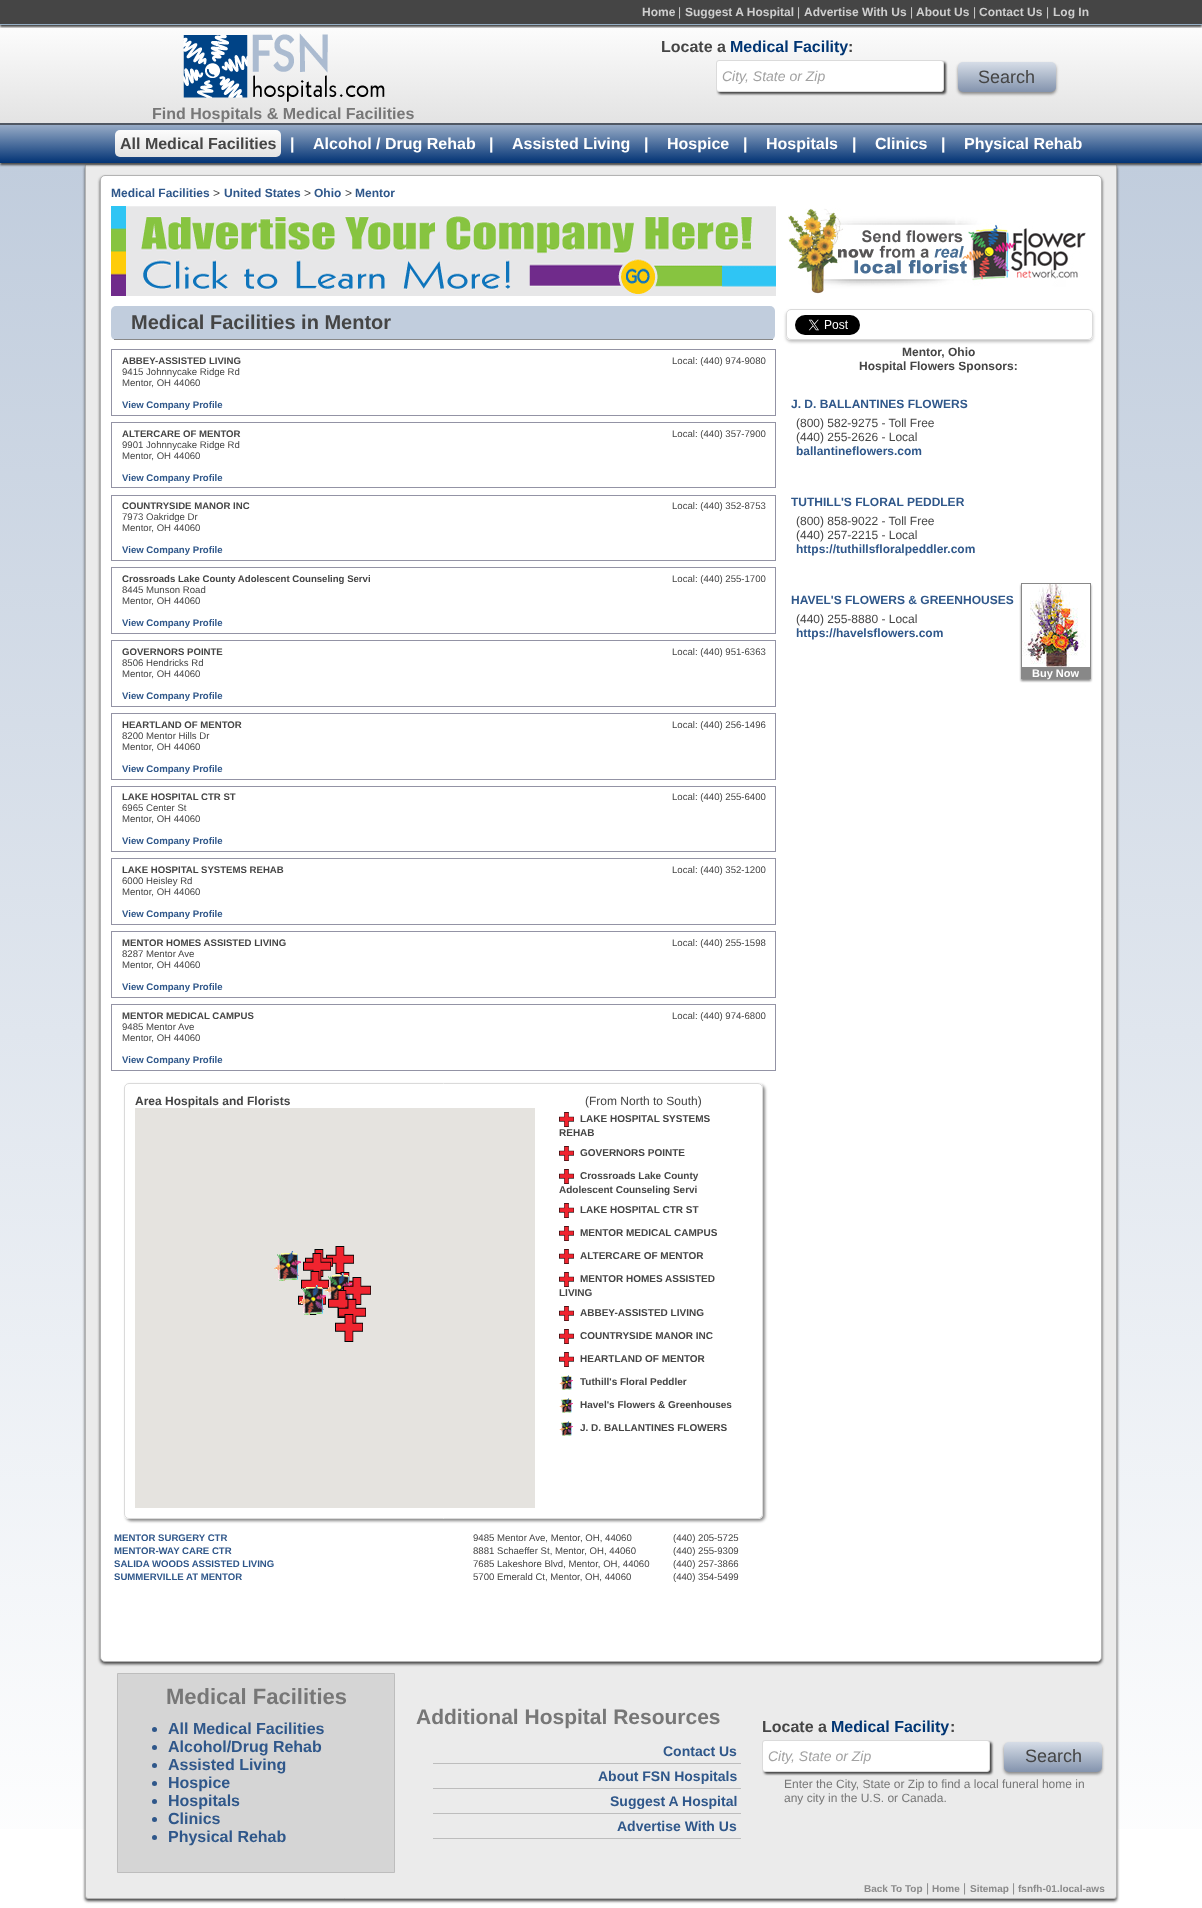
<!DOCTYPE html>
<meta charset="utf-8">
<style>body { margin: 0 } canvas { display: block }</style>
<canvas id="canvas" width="1202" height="1908"></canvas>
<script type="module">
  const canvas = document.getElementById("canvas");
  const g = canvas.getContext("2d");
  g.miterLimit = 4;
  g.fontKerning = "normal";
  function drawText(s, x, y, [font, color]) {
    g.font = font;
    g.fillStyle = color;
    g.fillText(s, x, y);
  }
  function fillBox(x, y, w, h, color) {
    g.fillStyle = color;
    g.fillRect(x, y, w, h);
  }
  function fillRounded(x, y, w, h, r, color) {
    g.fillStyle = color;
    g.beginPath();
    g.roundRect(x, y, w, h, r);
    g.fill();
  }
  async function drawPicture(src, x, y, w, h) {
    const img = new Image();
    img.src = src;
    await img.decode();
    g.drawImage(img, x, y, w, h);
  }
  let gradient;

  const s1 = ["bold 12px Liberation Sans", "#CECECE"];
  const s2 = ["12px Liberation Sans", "#CECECE"];
  const s3 = ["bold 16px Liberation Sans", "#454545"];
  const s4 = ["bold 16px Liberation Sans", "#003573"];
  const s5 = ["italic 14px Liberation Sans", "#A2A2A2"];
  const s6 = ["18px Liberation Sans", "#454545"];
  const s7 = ["bold 16px Liberation Sans", "#777777"];
  const s8 = ["bold 16px Liberation Sans", "#FFFFFF"];
  const s9 = ["bold 12px Liberation Sans", "#2F578A"];
  const s10 = ["12px Liberation Sans", "#454545"];
  const s11 = ["bold 20px Liberation Sans", "#454545"];
  const s12 = ["bold 9.6px Liberation Sans", "#454545"];
  const s13 = ["9.6px Liberation Sans", "#454545"];
  const s14 = ["bold 9.6px Liberation Sans", "#2F578A"];
  const s15 = ["bold 12px Liberation Sans", "#454545"];
  const s16 = ["bold 10px Liberation Sans", "#454545"];
  const s17 = ["bold 11px Liberation Sans", "#FFFFFF"];
  const s18 = ["bold 22px Liberation Sans", "#777777"];
  const s19 = ["bold 16px Liberation Sans", "#2F578A"];
  const s20 = ["bold 21px Liberation Sans", "#777777"];
  const s21 = ["bold 14px Liberation Sans", "#2F578A"];
  const s22 = ["12px Liberation Sans", "#777777"];
  const s23 = ["bold 10px Liberation Sans", "#8A8A8A"];
  const s24 = ["12px Liberation Sans", "#8A8A8A"];

  fillBox(0, 0, 1202, 1908, "#FFFFFF");
  g.fillStyle = "#454545";
  g.filter = "blur(1px)";
  g.beginPath();
  g.rect(0, 2, 1202, 25);
  g.fill();
  g.filter = "none";
  fillBox(0, 0, 1202, 24, "#454545");
  fillBox(0, 24, 1202, 1, "#96AFC5");
  drawText("Home", 642, 16, s1);
  drawText("|", 678, 16, s2);
  drawText("Suggest A Hospital", 685, 16, s1);
  drawText("|", 797, 16, s2);
  drawText("Advertise With Us", 804, 16, s1);
  drawText("|", 910, 16, s2);
  drawText("About Us", 916, 16, s1);
  drawText("|", 973, 16, s2);
  drawText("Contact Us", 979, 16, s1);
  drawText("|", 1046, 16, s2);
  drawText("Log In", 1053, 16, s1);
  gradient = g.createLinearGradient(601, 28, 601, 123);
  gradient.addColorStop(0, "#FCFCFC");
  gradient.addColorStop(1, "#E3E3E3");
  g.fillStyle = gradient;
  g.fillRect(0, 28, 1202, 95);
  drawText("Locate a", 661, 52, s3);
  drawText("Medical Facility", 730, 52, s4);
  drawText(":", 848, 52, s3);
  g.filter = "blur(1px)";
  g.beginPath();
  g.roundRect(718, 62, 228, 32, 3);
  g.fill();
  g.filter = "none";
  g.fillStyle = "#FFFFFF";
  g.beginPath();
  g.roundRect(716.5, 60.5, 227, 31, 2.5);
  g.fill();
  g.strokeStyle = "#DBDBDB";
  g.stroke();
  drawText("City, State or Zip", 722, 81, s5);
  g.fillStyle = "#888888";
  g.filter = "blur(1.5px)";
  g.beginPath();
  g.roundRect(958, 64, 98, 30, 5);
  g.fill();
  g.filter = "none";
  gradient = g.createLinearGradient(1007, 62, 1007, 92);
  gradient.addColorStop(0, "#D6DDE7");
  gradient.addColorStop(1, "#8393AD");
  g.fillStyle = gradient;
  g.beginPath();
  g.roundRect(958, 62, 98, 30, 5);
  g.fill();
  drawText("Search", 978, 83, s6);
  await drawPicture("pic1.png", 183, 33, 202, 69);
  drawText("Find Hospitals & Medical Facilities", 152, 119, s7);
  gradient = g.createLinearGradient(601, 164, 601, 1899);
  gradient.addColorStop(0, "#C1CDDD");
  gradient.addColorStop(1, "#FFFFFF");
  g.fillStyle = gradient;
  g.fillRect(0, 164, 1202, 1665);
  g.fillStyle = "#454545";
  g.filter = "blur(1.5px)";
  g.beginPath();
  g.roundRect(85, 166, 1032, 1735, 3);
  g.fill();
  g.filter = "none";
  g.fillStyle = "#EBEBEB";
  g.beginPath();
  g.roundRect(85.5, 164.5, 1031, 1734, [0, 0, 2.5, 2.5]);
  g.fill();
  g.strokeStyle = "#B3B3B3";
  g.stroke();
  g.fillStyle = "#454545";
  g.filter = "blur(1px)";
  g.beginPath();
  g.rect(0, 125, 1202, 40);
  g.fill();
  g.filter = "none";
  gradient = g.createLinearGradient(601, 125, 601, 163);
  gradient.addColorStop(0, "#97ABC6");
  gradient.addColorStop(1, "#023375");
  g.fillStyle = gradient;
  g.fillRect(0, 125, 1202, 38);
  fillBox(0, 123, 1202, 2, "#505863");
  gradient = g.createLinearGradient(198, 130, 198, 157);
  gradient.addColorStop(0, "#FCFCFC");
  gradient.addColorStop(1, "#E3E3E3");
  g.fillStyle = gradient;
  g.beginPath();
  g.roundRect(115, 130, 166, 27, 5);
  g.fill();
  drawText("All Medical Facilities", 120, 149, s3);
  drawText("|", 290, 149, s8);
  drawText("Alcohol / Drug Rehab", 313, 149, s8);
  drawText("|", 489, 149, s8);
  drawText("Assisted Living", 512, 149, s8);
  drawText("|", 644, 149, s8);
  drawText("Hospice", 667, 149, s8);
  drawText("|", 743, 149, s8);
  drawText("Hospitals", 766, 149, s8);
  drawText("|", 852, 149, s8);
  drawText("Clinics", 875, 149, s8);
  drawText("|", 941, 149, s8);
  drawText("Physical Rehab", 964, 149, s8);
  g.fillStyle = "#454545";
  g.filter = "blur(1.5px)";
  g.beginPath();
  g.roundRect(100, 177, 1002, 1487, 5);
  g.fill();
  g.filter = "none";
  g.fillStyle = "#FFFFFF";
  g.beginPath();
  g.roundRect(100.5, 175.5, 1001, 1486, 4.5);
  g.fill();
  g.stroke();
  drawText("Medical Facilities", 111, 197, s9);
  drawText(">", 213, 197, s10);
  drawText("United States", 224, 197, s9);
  drawText(">", 304, 197, s10);
  drawText("Ohio", 314, 197, s9);
  drawText(">", 345, 197, s10);
  drawText("Mentor", 355, 197, s9);
  await drawPicture("pic2.png", 111, 206, 665, 90);
  fillRounded(111, 306, 664, 34, 5, "#C1CDDD");
  fillBox(114, 339, 659, 1, "#888888");
  drawText("Medical Facilities in Mentor", 131, 329, s11);
  g.strokeStyle = "#9393A5";
  g.strokeRect(111.5, 349.5, 664, 66);
  drawText("ABBEY-ASSISTED LIVING", 122, 364, s12);
  drawText("9415 Johnnycake Ridge Rd", 122, 375, s13);
  drawText("Mentor, OH 44060", 122, 386, s13);
  drawText("Local: (440) 974-9080", 672, 364, s13);
  drawText("View Company Profile", 122, 408, s14);
  g.strokeRect(111.5, 422.5, 664, 65);
  drawText("ALTERCARE OF MENTOR", 122, 437, s12);
  drawText("9901 Johnnycake Ridge Rd", 122, 448, s13);
  drawText("Mentor, OH 44060", 122, 459, s13);
  drawText("Local: (440) 357-7900", 672, 437, s13);
  drawText("View Company Profile", 122, 481, s14);
  g.strokeRect(111.5, 495.5, 664, 65);
  drawText("COUNTRYSIDE MANOR INC", 122, 509, s12);
  drawText("7973 Oakridge Dr", 122, 520, s13);
  drawText("Mentor, OH 44060", 122, 531, s13);
  drawText("Local: (440) 352-8753", 672, 509, s13);
  drawText("View Company Profile", 122, 553, s14);
  g.strokeRect(111.5, 567.5, 664, 66);
  drawText("Crossroads Lake County Adolescent Counseling Servi", 122, 582, s12);
  drawText("8445 Munson Road", 122, 593, s13);
  drawText("Mentor, OH 44060", 122, 604, s13);
  drawText("Local: (440) 255-1700", 672, 582, s13);
  drawText("View Company Profile", 122, 626, s14);
  g.strokeRect(111.5, 640.5, 664, 66);
  drawText("GOVERNORS POINTE", 122, 655, s12);
  drawText("8506 Hendricks Rd", 122, 666, s13);
  drawText("Mentor, OH 44060", 122, 677, s13);
  drawText("Local: (440) 951-6363", 672, 655, s13);
  drawText("View Company Profile", 122, 699, s14);
  g.strokeRect(111.5, 713.5, 664, 66);
  drawText("HEARTLAND OF MENTOR", 122, 728, s12);
  drawText("8200 Mentor Hills Dr", 122, 739, s13);
  drawText("Mentor, OH 44060", 122, 750, s13);
  drawText("Local: (440) 256-1496", 672, 728, s13);
  drawText("View Company Profile", 122, 772, s14);
  g.strokeRect(111.5, 786.5, 664, 65);
  drawText("LAKE HOSPITAL CTR ST", 122, 800, s12);
  drawText("6965 Center St", 122, 811, s13);
  drawText("Mentor, OH 44060", 122, 822, s13);
  drawText("Local: (440) 255-6400", 672, 800, s13);
  drawText("View Company Profile", 122, 844, s14);
  g.strokeRect(111.5, 858.5, 664, 66);
  drawText("LAKE HOSPITAL SYSTEMS REHAB", 122, 873, s12);
  drawText("6000 Heisley Rd", 122, 884, s13);
  drawText("Mentor, OH 44060", 122, 895, s13);
  drawText("Local: (440) 352-1200", 672, 873, s13);
  drawText("View Company Profile", 122, 917, s14);
  g.strokeRect(111.5, 931.5, 664, 66);
  drawText("MENTOR HOMES ASSISTED LIVING", 122, 946, s12);
  drawText("8287 Mentor Ave", 122, 957, s13);
  drawText("Mentor, OH 44060", 122, 968, s13);
  drawText("Local: (440) 255-1598", 672, 946, s13);
  drawText("View Company Profile", 122, 990, s14);
  g.strokeRect(111.5, 1004.5, 664, 66);
  drawText("MENTOR MEDICAL CAMPUS", 122, 1019, s12);
  drawText("9485 Mentor Ave", 122, 1030, s13);
  drawText("Mentor, OH 44060", 122, 1041, s13);
  drawText("Local: (440) 974-6800", 672, 1019, s13);
  drawText("View Company Profile", 122, 1063, s14);
  g.save();
  g.beginPath();
  g.moveTo(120, 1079);
  g.lineTo(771, 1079);
  g.lineTo(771, 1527);
  g.lineTo(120, 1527);
  g.closePath();
  g.moveTo(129, 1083);
  g.lineTo(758, 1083);
  g.bezierCurveTo(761, 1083, 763, 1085, 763, 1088);
  g.lineTo(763, 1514);
  g.bezierCurveTo(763, 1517, 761, 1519, 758, 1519);
  g.lineTo(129, 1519);
  g.bezierCurveTo(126, 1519, 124, 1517, 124, 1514);
  g.lineTo(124, 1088);
  g.bezierCurveTo(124, 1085, 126, 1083, 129, 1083);
  g.closePath();
  g.clip("evenodd");
  g.fillStyle = "#888888";
  g.filter = "blur(1.5px)";
  g.beginPath();
  g.roundRect(126, 1085, 639, 436, 5);
  g.fill();
  g.filter = "none";
  g.restore();
  g.beginPath();
  g.roundRect(124.5, 1083.5, 638, 435, 4.5);
  g.strokeStyle = "#DADADA";
  g.stroke();
  drawText("Area Hospitals and Florists", 135, 1105, s15);
  drawText("(From North to South)", 585, 1105, s10);
  fillBox(135, 1108, 400, 400, "#E5E3DF");
  await drawPicture("pic3.png", 274, 1251, 27, 30);
  await drawPicture("pic5.png", 326, 1246, 28, 28);
  await drawPicture("pic4.png", 305, 1249, 28, 28);
  await drawPicture("pic6.png", 303, 1253, 28, 27);
  await drawPicture("pic7.png", 301, 1271, 28, 18);
  await drawPicture("pic8.png", 340, 1272, 13, 27);
  await drawPicture("pic10.png", 325, 1273, 27, 26);
  await drawPicture("pic12.png", 298, 1295, 28, 20);
  await drawPicture("pic9.png", 299, 1285, 27, 30);
  await drawPicture("pic11.png", 343, 1277, 28, 28);
  await drawPicture("pic13.png", 328, 1290, 28, 28);
  await drawPicture("pic14.png", 338, 1299, 28, 24);
  await drawPicture("pic15.png", 335, 1314, 28, 28);
  await drawPicture("pic16.png", 559, 1112, 15, 15);
  drawText("LAKE HOSPITAL SYSTEMS", 580, 1122, s16);
  drawText("REHAB", 559, 1136, s16);
  await drawPicture("pic16.png", 559, 1146, 15, 15);
  drawText("GOVERNORS POINTE", 580, 1156, s16);
  await drawPicture("pic16.png", 559, 1169, 15, 15);
  drawText("Crossroads Lake County", 580, 1179, s16);
  drawText("Adolescent Counseling Servi", 559, 1193, s16);
  await drawPicture("pic16.png", 559, 1203, 15, 15);
  drawText("LAKE HOSPITAL CTR ST", 580, 1213, s16);
  await drawPicture("pic16.png", 559, 1226, 15, 15);
  drawText("MENTOR MEDICAL CAMPUS", 580, 1236, s16);
  await drawPicture("pic16.png", 559, 1249, 15, 15);
  drawText("ALTERCARE OF MENTOR", 580, 1259, s16);
  await drawPicture("pic16.png", 559, 1272, 15, 15);
  drawText("MENTOR HOMES ASSISTED", 580, 1282, s16);
  drawText("LIVING", 559, 1296, s16);
  await drawPicture("pic16.png", 559, 1306, 15, 15);
  drawText("ABBEY-ASSISTED LIVING", 580, 1316, s16);
  await drawPicture("pic16.png", 559, 1329, 15, 15);
  drawText("COUNTRYSIDE MANOR INC", 580, 1339, s16);
  await drawPicture("pic16.png", 559, 1352, 15, 15);
  drawText("HEARTLAND OF MENTOR", 580, 1362, s16);
  await drawPicture("pic17.png", 559, 1375, 14, 15);
  drawText("Tuthill's Floral Peddler", 580, 1385, s16);
  await drawPicture("pic17.png", 559, 1398, 14, 15);
  drawText("Havel's Flowers & Greenhouses", 580, 1408, s16);
  await drawPicture("pic17.png", 559, 1421, 14, 15);
  drawText("J. D. BALLANTINES FLOWERS", 580, 1431, s16);
  drawText("MENTOR SURGERY CTR", 114, 1541, s14);
  drawText("9485 Mentor Ave, Mentor, OH, 44060", 473, 1541, s13);
  drawText("(440) 205-5725", 673, 1541, s13);
  drawText("MENTOR-WAY CARE CTR", 114, 1554, s14);
  drawText("8881 Schaeffer St, Mentor, OH, 44060", 473, 1554, s13);
  drawText("(440) 255-9309", 673, 1554, s13);
  drawText("SALIDA WOODS ASSISTED LIVING", 114, 1567, s14);
  drawText("7685 Lakeshore Blvd, Mentor, OH, 44060", 473, 1567, s13);
  drawText("(440) 257-3866", 673, 1567, s13);
  drawText("SUMMERVILLE AT MENTOR", 114, 1580, s14);
  drawText("5700 Emerald Ct, Mentor, OH, 44060", 473, 1580, s13);
  drawText("(440) 354-5499", 673, 1580, s13);
  await drawPicture("pic18.png", 788, 208, 298, 86);
  g.save();
  g.beginPath();
  g.moveTo(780, 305);
  g.lineTo(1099, 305);
  g.lineTo(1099, 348);
  g.lineTo(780, 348);
  g.closePath();
  g.moveTo(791, 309);
  g.lineTo(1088, 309);
  g.bezierCurveTo(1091, 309, 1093, 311, 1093, 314);
  g.lineTo(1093, 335);
  g.bezierCurveTo(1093, 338, 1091, 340, 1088, 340);
  g.lineTo(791, 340);
  g.bezierCurveTo(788, 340, 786, 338, 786, 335);
  g.lineTo(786, 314);
  g.bezierCurveTo(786, 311, 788, 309, 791, 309);
  g.closePath();
  g.clip("evenodd");
  g.fillStyle = "#C0C0C0";
  g.filter = "blur(1.5px)";
  g.beginPath();
  g.roundRect(786, 311, 307, 31, 5);
  g.fill();
  g.filter = "none";
  g.restore();
  g.beginPath();
  g.roundRect(786.5, 309.5, 306, 30, 4.5);
  g.stroke();
  await drawPicture("pic19.png", 795, 315, 65, 20);
  drawText("Mentor, Ohio", 902, 356, s15);
  drawText("Hospital Flowers Sponsors:", 859, 370, s15);
  drawText("J. D. BALLANTINES FLOWERS", 791, 408, s9);
  drawText("(800) 582-9275 - Toll Free", 796, 427, s10);
  drawText("(440) 255-2626 - Local", 796, 441, s10);
  drawText("ballantineflowers.com", 796, 455, s9);
  drawText("TUTHILL'S FLORAL PEDDLER", 791, 506, s9);
  drawText("(800) 858-9022 - Toll Free", 796, 525, s10);
  drawText("(440) 257-2215 - Local", 796, 539, s10);
  drawText("https://tuthillsfloralpeddler.com", 796, 553, s9);
  drawText("HAVEL'S FLOWERS & GREENHOUSES", 791, 604, s9);
  drawText("(440) 255-8880 - Local", 796, 623, s10);
  drawText("https://havelsflowers.com", 796, 637, s9);
  g.save();
  g.beginPath();
  g.moveTo(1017, 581);
  g.lineTo(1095, 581);
  g.lineTo(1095, 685);
  g.lineTo(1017, 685);
  g.closePath();
  g.moveTo(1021, 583);
  g.lineTo(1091, 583);
  g.lineTo(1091, 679);
  g.lineTo(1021, 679);
  g.closePath();
  g.clip("evenodd");
  g.fillStyle = "#888888";
  g.filter = "blur(1px)";
  g.beginPath();
  g.rect(1021, 585, 70, 96);
  g.fill();
  g.filter = "none";
  g.restore();
  g.strokeStyle = "#888888";
  g.strokeRect(1021.5, 583.5, 69, 95);
  await drawPicture("pic20.png", 1022, 584, 64, 83);
  fillBox(1022, 667, 68, 11, "#888888");
  drawText("Buy Now", 1032, 677, s17);
  g.fillStyle = "#D5D5D5";
  g.beginPath();
  g.rect(117.5, 1673.5, 277, 199);
  g.fill();
  g.strokeStyle = "#BDBDBD";
  g.stroke();
  drawText("Medical Facilities", 166, 1704, s18);
  g.fillStyle = "#2F578A";
  g.beginPath();
  g.arc(154.5, 1729.5, 2.5, 0, Math.PI * 2);
  g.fill();
  drawText("All Medical Facilities", 168, 1734, s19);
  g.beginPath();
  g.arc(154.5, 1747.5, 2.5, 0, Math.PI * 2);
  g.fill();
  drawText("Alcohol/Drug Rehab", 168, 1752, s19);
  g.beginPath();
  g.arc(154.5, 1765.5, 2.5, 0, Math.PI * 2);
  g.fill();
  drawText("Assisted Living", 168, 1770, s19);
  g.beginPath();
  g.arc(154.5, 1783.5, 2.5, 0, Math.PI * 2);
  g.fill();
  drawText("Hospice", 168, 1788, s19);
  g.beginPath();
  g.arc(154.5, 1801.5, 2.5, 0, Math.PI * 2);
  g.fill();
  drawText("Hospitals", 168, 1806, s19);
  g.beginPath();
  g.arc(154.5, 1819.5, 2.5, 0, Math.PI * 2);
  g.fill();
  drawText("Clinics", 168, 1824, s19);
  g.beginPath();
  g.arc(154.5, 1837.5, 2.5, 0, Math.PI * 2);
  g.fill();
  drawText("Physical Rehab", 168, 1842, s19);
  drawText("Additional Hospital Resources", 416, 1724, s20);
  fillBox(433, 1763, 308, 1, "#BDBDBD");
  drawText("Contact Us", 663, 1756, s21);
  fillBox(433, 1788, 308, 1, "#BDBDBD");
  drawText("About FSN Hospitals", 598, 1781, s21);
  fillBox(433, 1813, 308, 1, "#BDBDBD");
  drawText("Suggest A Hospital", 610, 1806, s21);
  fillBox(433, 1838, 308, 1, "#BDBDBD");
  drawText("Advertise With Us", 617, 1831, s21);
  drawText("Locate a", 762, 1732, s3);
  drawText("Medical Facility", 831, 1732, s4);
  drawText(":", 950, 1732, s3);
  g.filter = "blur(1px)";
  g.beginPath();
  g.roundRect(764, 1742, 228, 32, 3);
  g.fill();
  g.filter = "none";
  g.fillStyle = "#FFFFFF";
  g.beginPath();
  g.roundRect(762.5, 1740.5, 227, 31, 2.5);
  g.fill();
  g.strokeStyle = "#DBDBDB";
  g.stroke();
  drawText("City, State or Zip", 768, 1761, s5);
  g.fillStyle = "#888888";
  g.filter = "blur(1.5px)";
  g.beginPath();
  g.roundRect(1004, 1744, 98, 30, 5);
  g.fill();
  g.filter = "none";
  gradient = g.createLinearGradient(1053, 1742, 1053, 1772);
  gradient.addColorStop(0, "#D6DDE7");
  gradient.addColorStop(1, "#8393AD");
  g.fillStyle = gradient;
  g.beginPath();
  g.roundRect(1004, 1742, 98, 30, 5);
  g.fill();
  drawText("Search", 1025, 1762, s6);
  drawText("Enter the City, State or Zip to find a local funeral home in", 784, 1788, s22);
  drawText("any city in the U.S. or Canada.", 784, 1802, s22);
  drawText("Back To Top", 864, 1892, s23);
  drawText("|", 926, 1892, s24);
  drawText("Home", 932, 1892, s23);
  drawText("|", 963, 1892, s24);
  drawText("Sitemap", 970, 1892, s23);
  drawText("|", 1012, 1892, s24);
  drawText("fsnfh-01.local-aws", 1018, 1892, s23);
</script>
